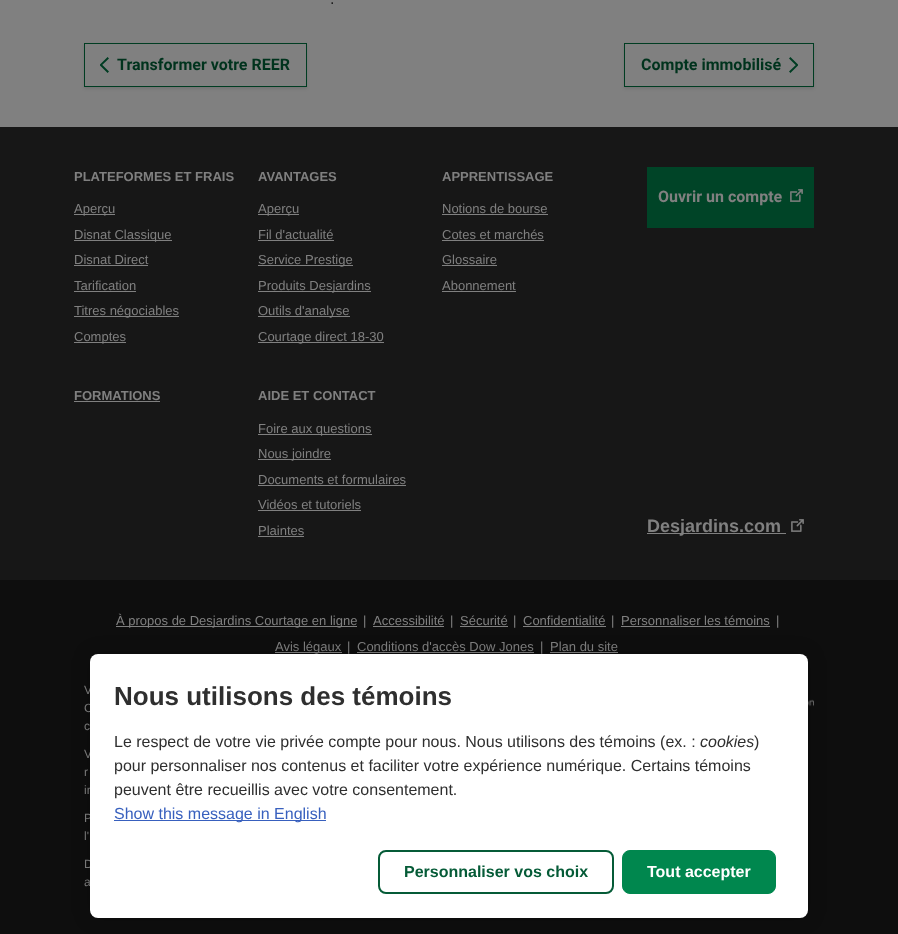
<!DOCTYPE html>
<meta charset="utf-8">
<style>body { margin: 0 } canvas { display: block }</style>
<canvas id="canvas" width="898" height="934"></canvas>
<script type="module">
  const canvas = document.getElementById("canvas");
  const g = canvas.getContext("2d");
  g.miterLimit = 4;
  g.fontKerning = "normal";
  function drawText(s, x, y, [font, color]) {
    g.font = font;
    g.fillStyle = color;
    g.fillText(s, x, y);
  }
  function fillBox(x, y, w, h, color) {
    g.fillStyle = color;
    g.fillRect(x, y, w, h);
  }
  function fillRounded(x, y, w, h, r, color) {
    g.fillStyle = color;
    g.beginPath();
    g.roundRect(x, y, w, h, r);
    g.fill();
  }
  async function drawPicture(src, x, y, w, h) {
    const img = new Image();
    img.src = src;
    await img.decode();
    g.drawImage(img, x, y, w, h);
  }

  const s1 = ["16px Liberation Sans", "#1C1C1C"];
  const s2 = ["bold 16px Roboto", "#00331D"];
  const s3 = ["bold 13px Liberation Sans", "#808080"];
  const s4 = ["13px Liberation Sans", "#808080"];
  const s5 = ["bold 16px Roboto", "#808080"];
  const s6 = ["bold 18px Liberation Sans", "#808080"];
  const s7 = ["12px Liberation Sans", "#808080"];
  const s8 = ["bold 26px Liberation Sans", "#2F2F2F"];
  const s9 = ["16px Liberation Sans", "#2F2F2F"];
  const s10 = ["italic 16px Liberation Sans", "#2F2F2F"];
  const s11 = ["16px Liberation Sans", "#3860BE"];
  const s12 = ["bold 16px Liberation Sans", "#055B37"];
  const s13 = ["bold 16px Liberation Sans", "#FFFFFF"];

  fillBox(0, 0, 898, 934, "#808080");
  drawText(".", 330, 4, s1);
  g.save();
  g.beginPath();
  g.moveTo(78, 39);
  g.lineTo(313, 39);
  g.lineTo(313, 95);
  g.lineTo(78, 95);
  g.closePath();
  g.moveTo(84, 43);
  g.lineTo(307, 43);
  g.lineTo(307, 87);
  g.lineTo(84, 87);
  g.closePath();
  g.clip("evenodd");
  g.fillStyle = "rgba(0, 0, 0, 0.1)";
  g.filter = "blur(1.5px)";
  g.beginPath();
  g.rect(84, 45, 223, 44);
  g.fill();
  g.filter = "none";
  g.restore();
  g.strokeStyle = "#003D22";
  g.strokeRect(84.5, 43.5, 222, 43);
  await drawPicture("pic1.png", 100, 57, 9, 16);
  drawText("Transformer votre REER", 117, 70, s2);
  g.save();
  g.beginPath();
  g.moveTo(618, 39);
  g.lineTo(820, 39);
  g.lineTo(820, 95);
  g.lineTo(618, 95);
  g.closePath();
  g.moveTo(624, 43);
  g.lineTo(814, 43);
  g.lineTo(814, 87);
  g.lineTo(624, 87);
  g.closePath();
  g.clip("evenodd");
  g.fillStyle = "rgba(0, 0, 0, 0.1)";
  g.filter = "blur(1.5px)";
  g.beginPath();
  g.rect(624, 45, 190, 44);
  g.fill();
  g.filter = "none";
  g.restore();
  g.strokeRect(624.5, 43.5, 189, 43);
  drawText("Compte immobilisé", 641, 70, s2);
  await drawPicture("pic2.png", 789, 57, 9, 16);
  fillBox(0, 127, 898, 453, "#171717");
  drawText("PLATEFORMES ET FRAIS", 74, 181, s3);
  fillBox(74, 214, 41, 1, "#808080");
  drawText("Aperçu", 74, 213, s4);
  fillBox(74, 240, 98, 1, "#808080");
  drawText("Disnat Classique", 74, 239, s4);
  drawText("Disnat Direct", 74, 264, s4);
  fillBox(74, 265, 74, 1, "#808080");
  drawText("Tarification", 74, 290, s4);
  fillBox(74, 291, 62, 1, "#808080");
  fillBox(74, 316, 105, 1, "#808080");
  drawText("Titres négociables", 74, 315, s4);
  fillBox(74, 342, 52, 1, "#808080");
  drawText("Comptes", 74, 341, s4);
  drawText("AVANTAGES", 258, 181, s3);
  fillBox(258, 214, 41, 1, "#808080");
  drawText("Aperçu", 258, 213, s4);
  drawText("Fil d'actualité", 258, 239, s4);
  fillBox(258, 240, 76, 1, "#808080");
  fillBox(258, 265, 95, 1, "#808080");
  drawText("Service Prestige", 258, 264, s4);
  fillBox(258, 291, 113, 1, "#808080");
  drawText("Produits Desjardins", 258, 290, s4);
  fillBox(258, 316, 92, 1, "#808080");
  drawText("Outils d'analyse", 258, 315, s4);
  fillBox(258, 342, 126, 1, "#808080");
  drawText("Courtage direct 18-30", 258, 341, s4);
  drawText("APPRENTISSAGE", 442, 181, s3);
  drawText("Notions de bourse", 442, 213, s4);
  fillBox(442, 214, 106, 1, "#808080");
  drawText("Cotes et marchés", 442, 239, s4);
  fillBox(442, 240, 102, 1, "#808080");
  drawText("Glossaire", 442, 264, s4);
  fillBox(442, 265, 55, 1, "#808080");
  drawText("Abonnement", 442, 290, s4);
  fillBox(442, 291, 74, 1, "#808080");
  drawText("FORMATIONS", 74, 400, s3);
  fillBox(74, 401, 86, 1, "#808080");
  drawText("AIDE ET CONTACT", 258, 400, s3);
  fillBox(258, 434, 114, 1, "#808080");
  drawText("Foire aux questions", 258, 433, s4);
  fillBox(258, 459, 73, 1, "#808080");
  drawText("Nous joindre", 258, 458, s4);
  drawText("Documents et formulaires", 258, 484, s4);
  fillBox(258, 485, 148, 1, "#808080");
  drawText("Vidéos et tutoriels", 258, 509, s4);
  fillBox(258, 510, 103, 1, "#808080");
  drawText("Plaintes", 258, 535, s4);
  fillBox(258, 536, 46, 1, "#808080");
  fillBox(647, 167, 167, 61, "#004427");
  drawText("Ouvrir un compte", 658, 202, s5);
  await drawPicture("pic3.png", 790, 189, 13, 13);
  fillBox(647, 533, 139, 1, "#808080");
  drawText("Desjardins.com", 647, 532, s6);
  await drawPicture("pic4.png", 791, 519, 13, 13);
  fillBox(0, 580, 898, 354, "#0E0E0E");
  fillBox(116, 626, 241, 1, "#808080");
  drawText("À propos de Desjardins Courtage en ligne", 116, 625, s4);
  drawText("|", 363, 625, s4);
  drawText("Accessibilité", 373, 625, s4);
  fillBox(373, 626, 71, 1, "#808080");
  drawText("|", 450, 625, s4);
  drawText("Sécurité", 460, 625, s4);
  fillBox(460, 626, 48, 1, "#808080");
  drawText("|", 513, 625, s4);
  drawText("Confidentialité", 523, 625, s4);
  fillBox(523, 626, 83, 1, "#808080");
  drawText("|", 611, 625, s4);
  drawText("Personnaliser les témoins", 621, 625, s4);
  fillBox(621, 626, 149, 1, "#808080");
  drawText("|", 776, 625, s4);
  fillBox(275, 652, 67, 1, "#808080");
  drawText("Avis légaux", 275, 651, s4);
  drawText("|", 347, 651, s4);
  drawText("Conditions d'accès Dow Jones", 357, 651, s4);
  fillBox(357, 652, 177, 1, "#808080");
  drawText("|", 540, 651, s4);
  drawText("Plan du site", 550, 651, s4);
  fillBox(550, 652, 68, 1, "#808080");
  drawText("V", 84, 694, s7);
  drawText("C", 84, 712, s7);
  drawText("c", 84, 730, s7);
  drawText("V", 84, 758, s7);
  drawText("r", 84, 776, s7);
  drawText("in", 84, 794, s7);
  drawText("P", 84, 822, s7);
  drawText("l'", 84, 840, s7);
  drawText("D", 84, 868, s7);
  drawText("a", 84, 886, s7);
  await drawPicture("pic5.png", 808, 699, 6, 8);
  g.fillStyle = "rgba(0, 0, 0, 0.2)";
  g.filter = "blur(9px)";
  g.beginPath();
  g.roundRect(90, 654, 718, 264, 8);
  g.fill();
  g.filter = "none";
  fillRounded(90, 654, 718, 264, 8, "#FFFFFF");
  drawText("Nous utilisons des témoins", 114, 705, s8);
  drawText("Le respect de votre vie privée compte pour nous. Nous utilisons des témoins (ex. :", 114, 747, s9);
  drawText("cookies", 700, 747, s10);
  drawText(")", 754, 747, s9);
  drawText("pour personnaliser nos contenus et faciliter votre expérience numérique. Certains témoins", 114, 771, s9);
  drawText("peuvent être recueillis avec votre consentement.", 114, 795, s9);
  fillBox(114, 820, 212, 1, "#3860BE");
  drawText("Show this message in English", 114, 819, s11);
  g.beginPath();
  g.roundRect(379, 851, 234, 42, 7);
  g.strokeStyle = "#055B37";
  g.lineWidth = 2;
  g.stroke();
  drawText("Personnaliser vos choix", 404, 877, s12);
  g.fillStyle = "#00874E";
  g.beginPath();
  g.roundRect(622.5, 850.5, 153, 43, 7.5);
  g.fill();
  g.strokeStyle = "#00874E";
  g.lineWidth = 1;
  g.stroke();
  drawText("Tout accepter", 647, 877, s13);
</script>
